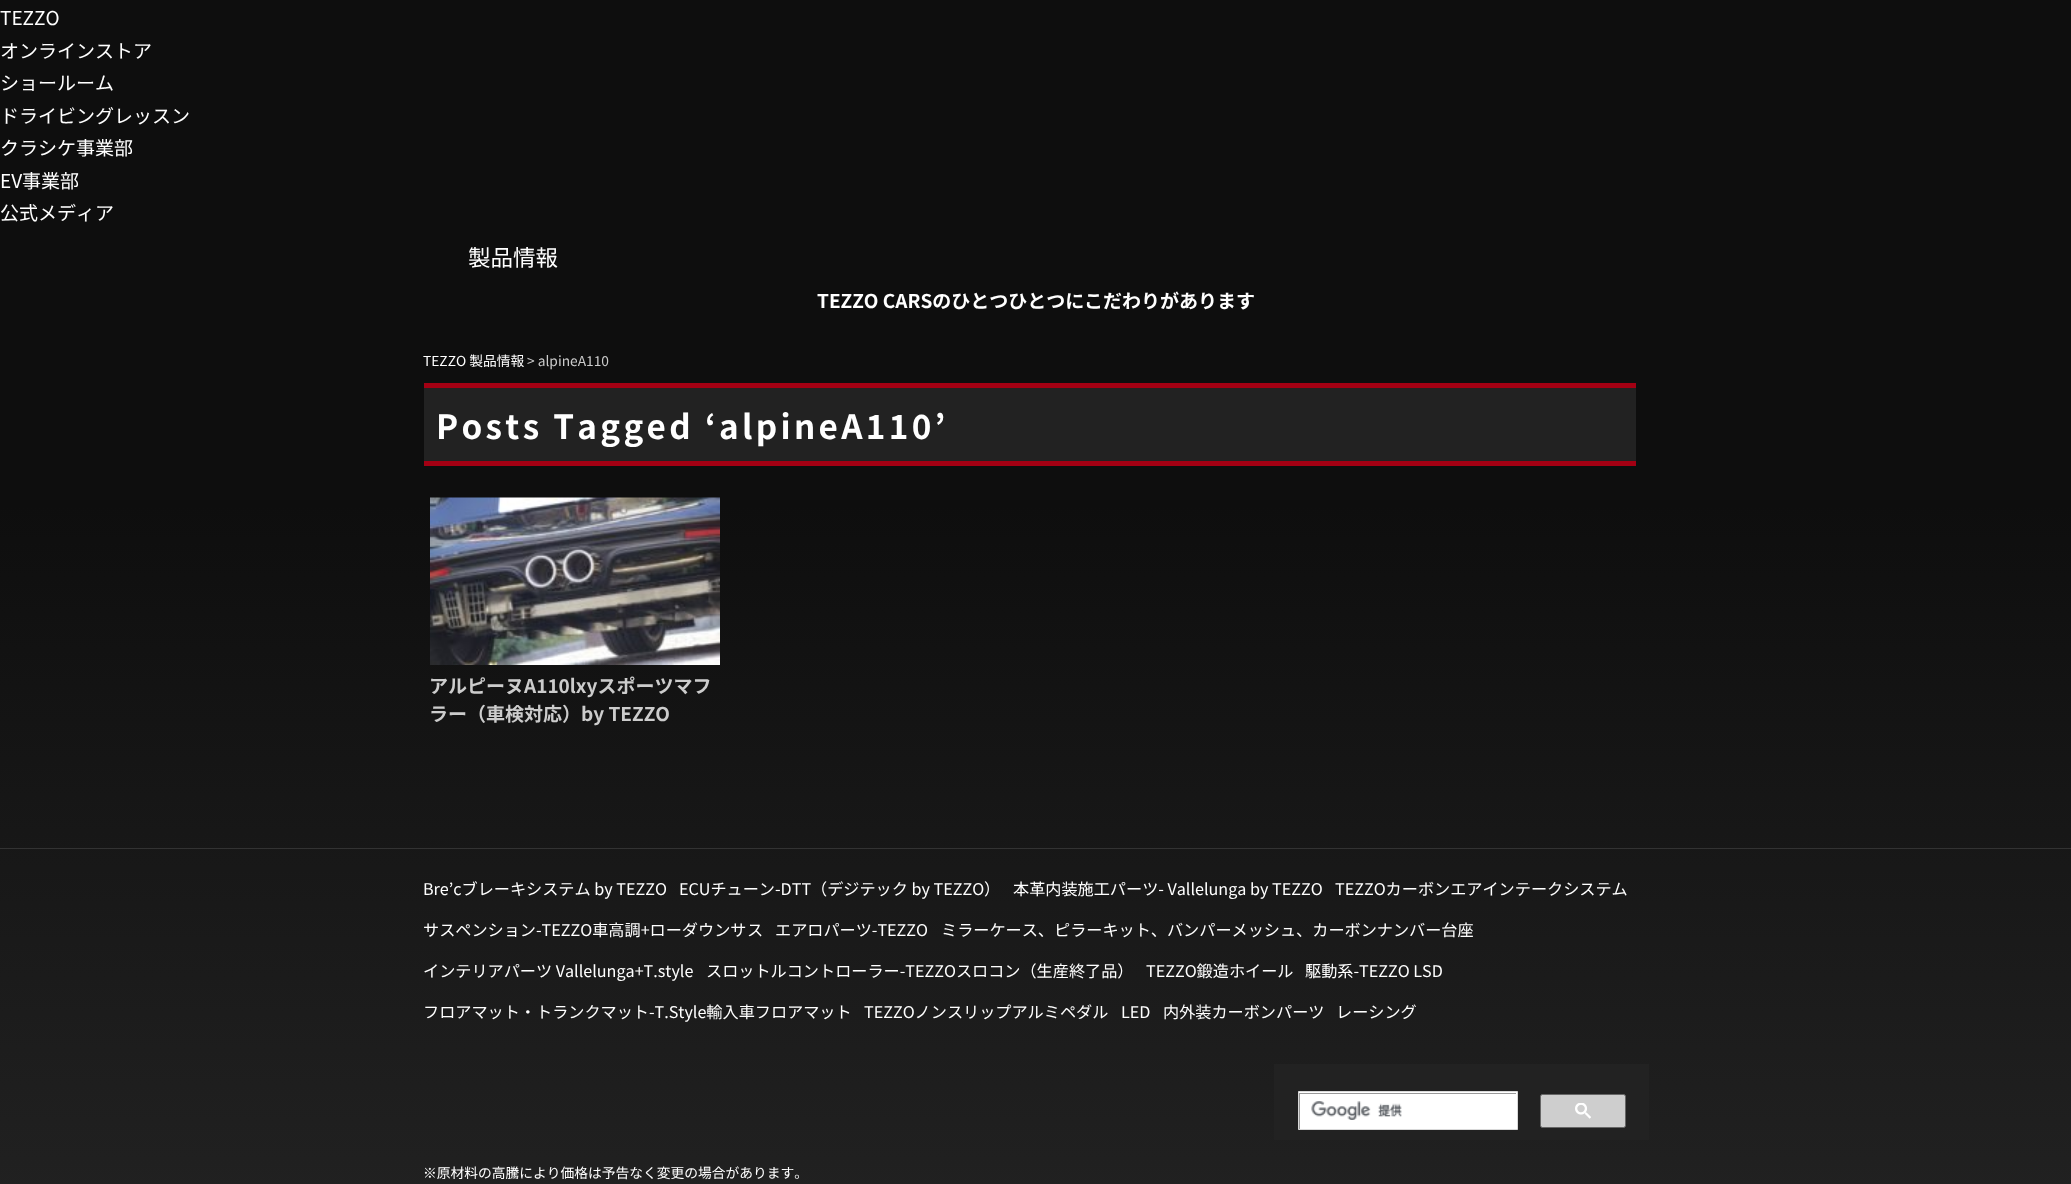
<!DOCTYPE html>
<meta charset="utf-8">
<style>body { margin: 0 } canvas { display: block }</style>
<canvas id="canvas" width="2071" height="1184"></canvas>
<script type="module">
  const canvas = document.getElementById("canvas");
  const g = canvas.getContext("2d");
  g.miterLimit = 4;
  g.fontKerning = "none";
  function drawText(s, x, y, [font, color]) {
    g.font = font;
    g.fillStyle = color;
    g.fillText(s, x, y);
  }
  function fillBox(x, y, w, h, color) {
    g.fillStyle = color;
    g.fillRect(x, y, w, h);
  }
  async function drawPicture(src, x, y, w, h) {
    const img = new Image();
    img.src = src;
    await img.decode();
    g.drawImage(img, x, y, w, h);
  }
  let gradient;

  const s1 = ["19px Noto Sans JP", "#FFFFFF"];
  const s2 = ["22.5px Noto Sans JP", "#FFFFFF"];
  const s3 = ["bold 19px Noto Sans JP", "#FFFFFF"];
  const s4 = ["13.75px Noto Sans JP", "#FFFFFF"];
  const s5 = ["13.75px Noto Sans JP", "#CCCCCC"];
  const s6 = ["bold 33.25px Noto Sans JP", "#FFFFFF"];
  const s7 = ["bold 19px Noto Sans JP", "#CCCCCC"];
  const s8 = ["16.15px Noto Sans JP", "#FFFFFF"];

  fillBox(0, 0, 2071, 1184, "#FFFFFF");
  gradient = g.createLinearGradient(1036, 0, 1036, 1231);
  gradient.addColorStop(0.41, "#0E0E0E");
  gradient.addColorStop(1, "#222222");
  g.fillStyle = gradient;
  g.fillRect(0, 0, 2071, 1184);
  drawText("TEZZO", 0, 25, s1);
  drawText("オンラインストア", 0, 58, s1);
  drawText("ショールーム", 0, 90, s1);
  drawText("ドライビングレッスン", 0, 123, s1);
  drawText("クラシケ事業部", 0, 155, s1);
  drawText("EV事業部", 0, 188, s1);
  drawText("公式メディア", 0, 220, s1);
  drawText("製品情報", 468, 266, s2);
  drawText("TEZZO CARSのひとつひとつに", 817, 308, s3);
  drawText("こだわりがあります", 1084, 308, s3);
  drawText("TEZZO 製品情報", 423, 366, s4);
  drawText("> alpineA110", 527, 366, s5);
  fillBox(424, 388, 1212, 73, "#222222");
  fillBox(424, 383, 1212, 5, "#A30013");
  fillBox(424, 461, 1212, 5, "#A30013");
  g.letterSpacing = "3.3px";
  drawText("Posts Tagged", 436, 439, s6);
  drawText("‘alpineA110’", 705, 439, s6);
  await drawPicture("pic1.png", 430, 497, 290, 168);
  g.letterSpacing = "0px";
  drawText("アルピーヌA110lxyスポーツマフ", 429, 693, s7);
  drawText("ラー（車検対応）by TEZZO", 429, 721, s7);
  fillBox(0, 848, 2071, 1, "#333333");
  drawText("Bre’cブレーキシステム by TEZZO", 423, 895, s8);
  drawText("ECUチューン-DTT（デジテック by TEZZO）", 679, 895, s8);
  drawText("本革内装施工パーツ- Vallelunga by TEZZO", 1013, 895, s8);
  drawText("TEZZOカーボンエアインテークシステム", 1335, 895, s8);
  drawText("サスペンション-TEZZO車高調+ローダウンサ", 423, 936, s8);
  drawText("ス", 747, 936, s8);
  drawText("エアロパーツ-TEZZO", 775, 936, s8);
  drawText("ミラーケース、ピラーキット、バンパーメッシュ、カーボンナンバー台座", 941, 936, s8);
  drawText("インテリアパーツ Vallelunga+T.style", 423, 977, s8);
  drawText("スロットルコントローラー-TEZZOスロコン（生産終了品）", 706, 977, s8);
  drawText("TEZZO鍛造ホイール", 1146, 977, s8);
  drawText("駆動系-TEZZO LSD", 1305, 977, s8);
  drawText("フロアマット・トランクマット-T.Style輸入車フロアマット", 423, 1018, s8);
  drawText("TEZZOノンスリップアルミペダル", 864, 1018, s8);
  drawText("LED", 1121, 1018, s8);
  drawText("内外装カーボンパーツ", 1163, 1018, s8);
  drawText("レーシング", 1336, 1018, s8);
  fillBox(1274, 1064, 375, 76, "#222222");
  g.fillStyle = "#FFFFFF";
  g.beginPath();
  g.rect(1298.5, 1091.5, 219, 38);
  g.fill();
  g.strokeStyle = "#D9D9D9";
  g.stroke();
  fillBox(1299, 1093, 217, 1, "#999999");
  fillBox(1299, 1093, 1, 36, "#999999");
  await drawPicture("pic2.png", 1311, 1101, 91, 19);
  g.fillStyle = "#CECECE";
  g.beginPath();
  g.roundRect(1540.5, 1094.5, 85, 33, 2);
  g.fill();
  g.strokeStyle = "#666666";
  g.stroke();
  await drawPicture("pic3.png", 1575, 1103, 16, 16);
  drawText("※原材料の高騰により価格は予告なく変更の場合があります。", 423, 1178, s4);
</script>
